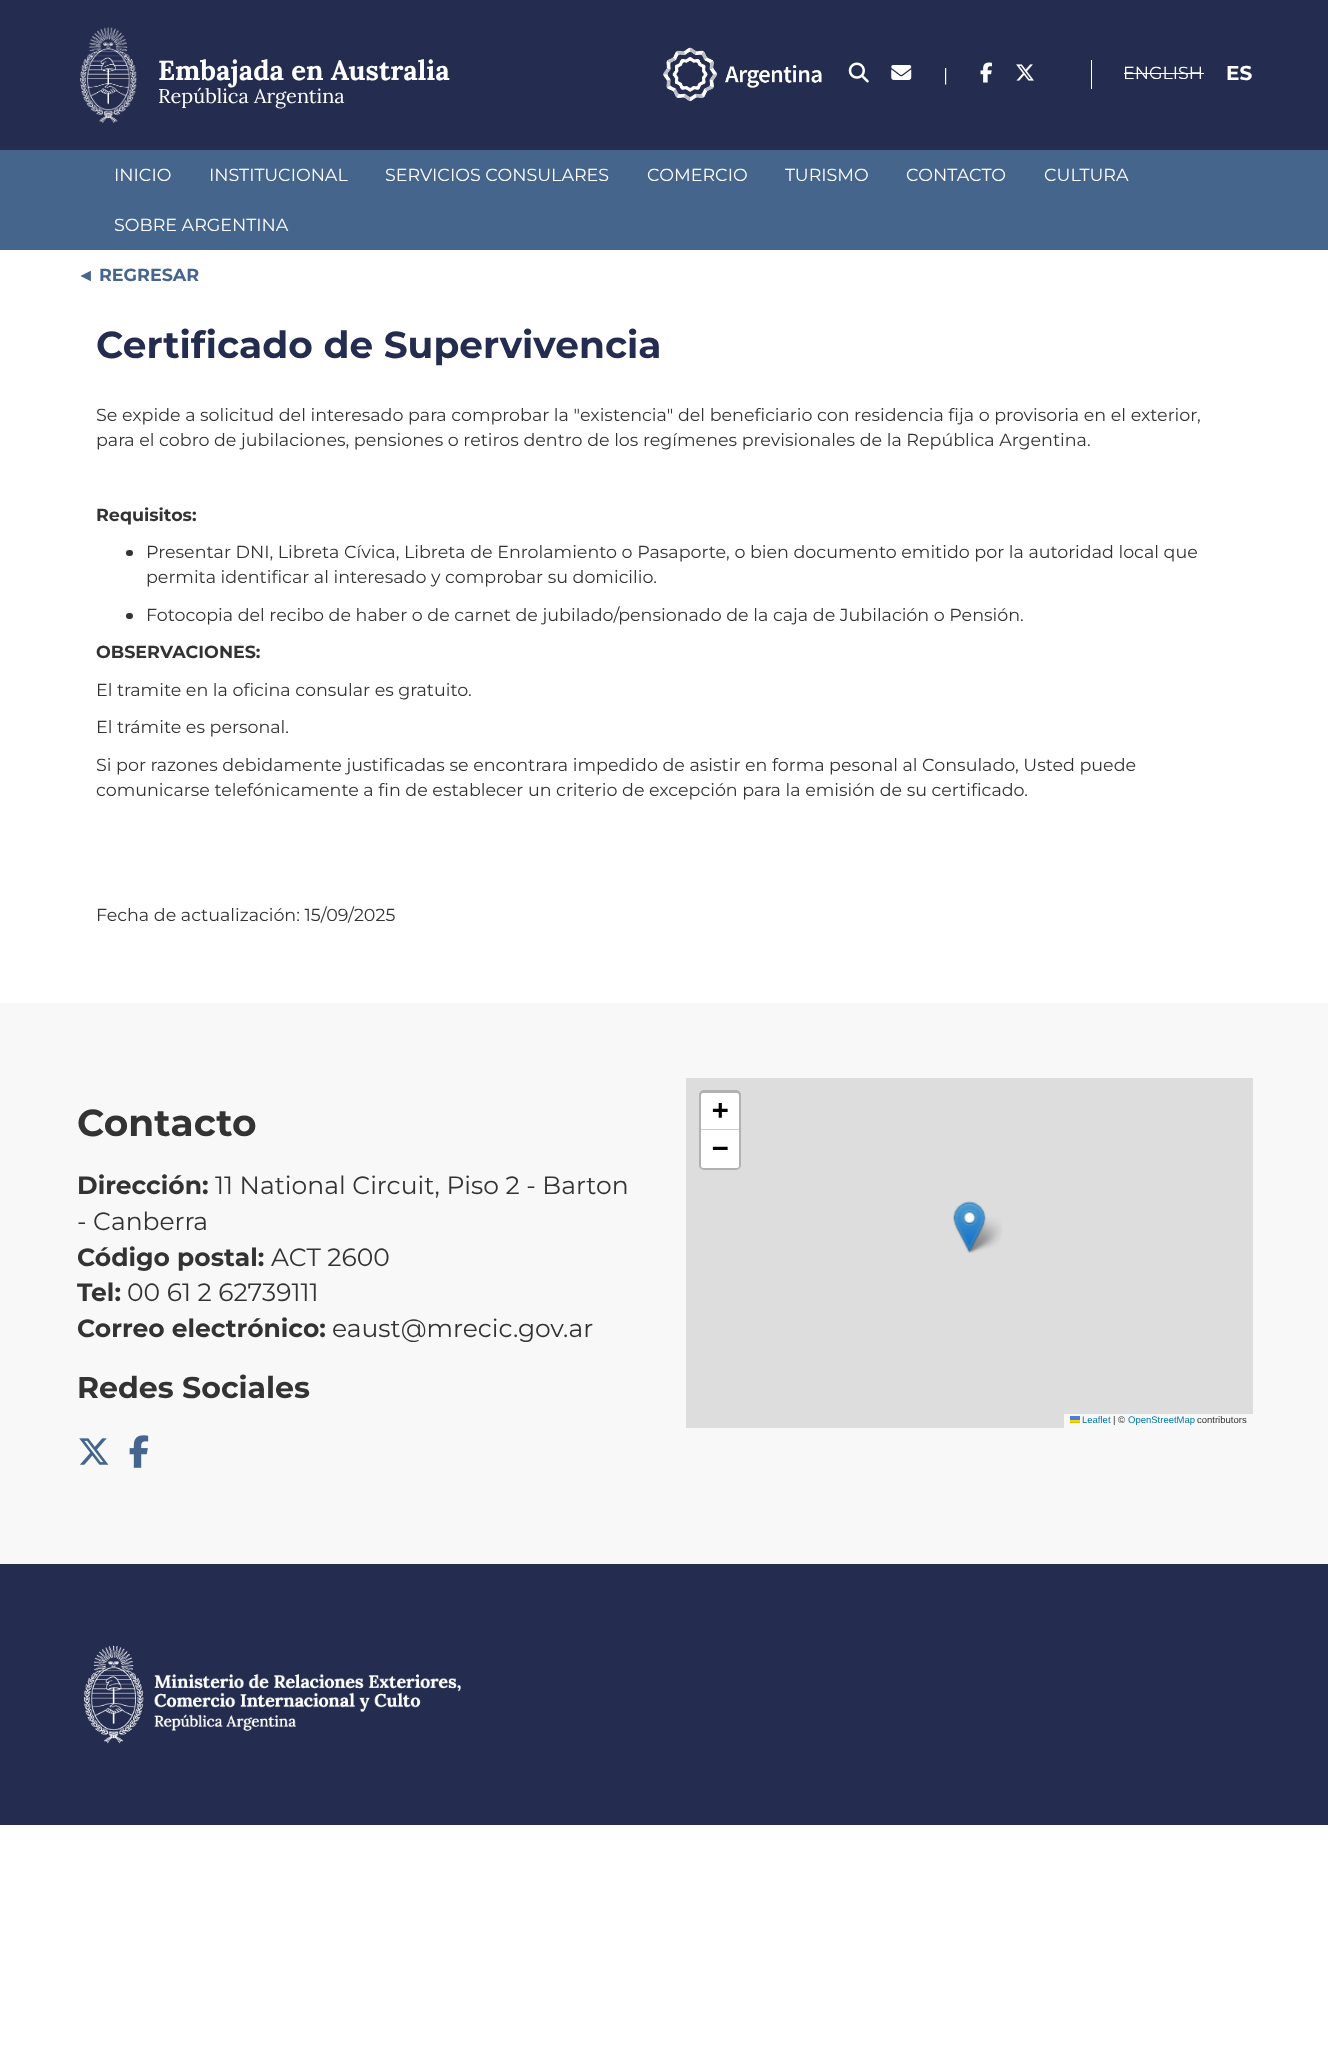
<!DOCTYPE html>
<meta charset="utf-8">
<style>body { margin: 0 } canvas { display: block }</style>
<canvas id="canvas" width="1328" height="2072"></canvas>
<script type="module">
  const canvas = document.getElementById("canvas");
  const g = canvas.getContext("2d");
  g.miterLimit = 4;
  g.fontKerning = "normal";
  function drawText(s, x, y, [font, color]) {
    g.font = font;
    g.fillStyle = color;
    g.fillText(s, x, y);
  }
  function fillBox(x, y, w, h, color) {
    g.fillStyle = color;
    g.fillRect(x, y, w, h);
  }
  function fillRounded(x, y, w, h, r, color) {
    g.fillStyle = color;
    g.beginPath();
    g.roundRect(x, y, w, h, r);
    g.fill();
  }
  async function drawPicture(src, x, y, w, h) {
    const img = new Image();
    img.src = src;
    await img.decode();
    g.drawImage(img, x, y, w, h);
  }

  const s1 = ["bold 27.5px Lora", "#FFFFFF"];
  const s2 = ["20px Lora", "#FFFFFF"];
  const s3 = ["17.5px Montserrat", "#FFFFFF"];
  const s4 = ["bold 20px Montserrat", "#FFFFFF"];
  const s5 = ["bold 17.5px Liberation Sans", "#45658D"];
  const s6 = ["bold 17.5px Montserrat", "#45658D"];
  const s7 = ["bold 37.5px Montserrat", "#242C4F"];
  const s8 = ["17.5px Montserrat", "#333333"];
  const s9 = ["bold 17.5px Montserrat", "#333333"];
  const s10 = ["bold 37.5px Montserrat", "#333333"];
  const s11 = ["bold 25px Montserrat", "#333333"];
  const s12 = ["25px Montserrat", "#333333"];
  const s13 = ["bold 30px Montserrat", "#333333"];
  const s14 = ["bold 27.5px DejaVu Sans Mono", "#000000"];
  const s15 = ["9.5px Liberation Sans", "#0078A8"];
  const s16 = ["9.5px Liberation Sans", "#333333"];

  fillBox(0, 0, 1328, 2072, "#FFFFFF");
  fillBox(0, 0, 1328, 150, "#242C4F");
  await drawPicture("pic1.png", 80, 27, 57, 97);
  drawText("Embajada en Australia", 158, 80, s1);
  drawText("República Argentina", 158, 103, s2);
  await drawPicture("pic2.png", 663, 47, 159, 55);
  await drawPicture("pic3.png", 848, 62, 21, 21);
  await drawPicture("pic4.png", 891, 65, 21, 15);
  drawText("|", 943, 81, s3);
  await drawPicture("pic5.png", 980, 62, 12, 21);
  await drawPicture("pic6.png", 1016, 64, 18, 17);
  fillBox(1091, 60, 1, 29, "#FFFFFF");
  drawText("ENGLISH", 1123, 79, s3);
  fillBox(1124, 73, 80, 1, "#FFFFFF");
  drawText("ES", 1226, 80, s4);
  fillBox(0, 150, 1328, 100, "#45658D");
  drawText("INICIO", 114, 181, s3);
  drawText("INSTITUCIONAL", 209, 181, s3);
  drawText("SERVICIOS CONSULARES", 385, 181, s3);
  drawText("COMERCIO", 647, 181, s3);
  drawText("TURISMO", 785, 181, s3);
  drawText("CONTACTO", 906, 181, s3);
  drawText("CULTURA", 1044, 181, s3);
  drawText("SOBRE ARGENTINA", 114, 231, s3);
  drawText("◄", 77, 281, s5);
  drawText("REGRESAR", 99, 281, s6);
  drawText("Certificado de Supervivencia", 96, 358, s7);
  drawText("Se expide a solicitud del interesado para comprobar la \"existencia\" del beneficiario con residencia fija o provisoria en el exterior,", 96, 421, s8);
  drawText("para el cobro de jubilaciones, pensiones o retiros dentro de los regímenes previsionales de la República Argentina.", 96, 446, s8);
  drawText("Requisitos:", 96, 521, s9);
  fillRounded(126, 550, 7, 6, 3, "#333333");
  drawText("Presentar DNI, Libreta Cívica, Libreta de Enrolamiento o Pasaporte, o bien documento emitido por la autoridad local que", 146, 558, s8);
  drawText("permita identificar al interesado y comprobar su domicilio.", 146, 583, s8);
  fillRounded(126, 613, 7, 6, 3, "#333333");
  drawText("Fotocopia del recibo de haber o de carnet de jubilado/pensionado de la caja de Jubilación o Pensión.", 146, 621, s8);
  drawText("OBSERVACIONES:", 96, 658, s9);
  drawText("El tramite en la oficina consular es gratuito.", 96, 696, s8);
  drawText("El trámite es personal.", 96, 733, s8);
  drawText("Si por razones debidamente justificadas se encontrara impedido de asistir en forma pesonal al Consulado, Usted puede", 96, 771, s8);
  drawText("comunicarse telefónicamente a fin de establecer un criterio de excepción para la emisión de su certificado.", 96, 796, s8);
  drawText("Fecha de actualización: 15/09/2025", 96, 921, s8);
  fillBox(0, 1003, 1328, 561, "#F8F8F8");
  drawText("Contacto", 77, 1136, s10);
  drawText("Dirección:", 77, 1194, s11);
  drawText("11 National Circuit, Piso 2 - Barton", 215, 1194, s12);
  drawText("- Canberra", 77, 1230, s12);
  drawText("Código postal:", 77, 1266, s11);
  drawText("ACT 2600", 271, 1266, s12);
  drawText("Tel:", 77, 1301, s11);
  drawText("00 61 2 62739111", 127, 1301, s12);
  drawText("Correo electrónico:", 77, 1337, s11);
  drawText("eaust@mrecic.gov.ar", 332, 1337, s12);
  drawText("Redes Sociales", 77, 1398, s13);
  await drawPicture("pic7.png", 79, 1438, 30, 27);
  await drawPicture("pic8.png", 129, 1435, 20, 33);
  fillBox(686, 1078, 567, 350, "#DDDDDD");
  g.beginPath();
  g.roundRect(700.5, 1091.5, 39, 77, 3.5);
  g.strokeStyle = "#B1B1B1";
  g.lineWidth = 3;
  g.stroke();
  g.fillStyle = "#FFFFFF";
  g.beginPath();
  g.roundRect(701, 1093, 38, 37, [2.5, 2.5, 0, 0]);
  g.fill();
  fillBox(701, 1129, 38, 1, "#CCCCCC");
  drawText("+", 712, 1119, s14);
  g.fillStyle = "#FFFFFF";
  g.beginPath();
  g.roundRect(701, 1130, 38, 38, [0, 0, 2.5, 2.5]);
  g.fill();
  drawText("−", 712, 1157, s14);
  fillBox(1064, 1414, 189, 14, "#F8F8F8");
  drawText("Leaflet", 1082, 1423, s15);
  fillBox(1070, 1416, 10, 4, "#4C7BE1");
  fillBox(1070, 1420, 10, 2, "#FFD500");
  fillBox(1070, 1422, 10, 1, "#E0BC00");
  drawText("| ©", 1113, 1423, s16);
  drawText("OpenStreetMap", 1128, 1423, s15);
  drawText("contributors", 1197, 1423, s16);
  await drawPicture("pic10.png", 965, 1217, 37, 36);
  await drawPicture("pic9.png", 953, 1201, 33, 52);
  fillBox(0, 1564, 1328, 261, "#242C4F");
  await drawPicture("pic11.png", 83, 1645, 378, 99);
</script>
